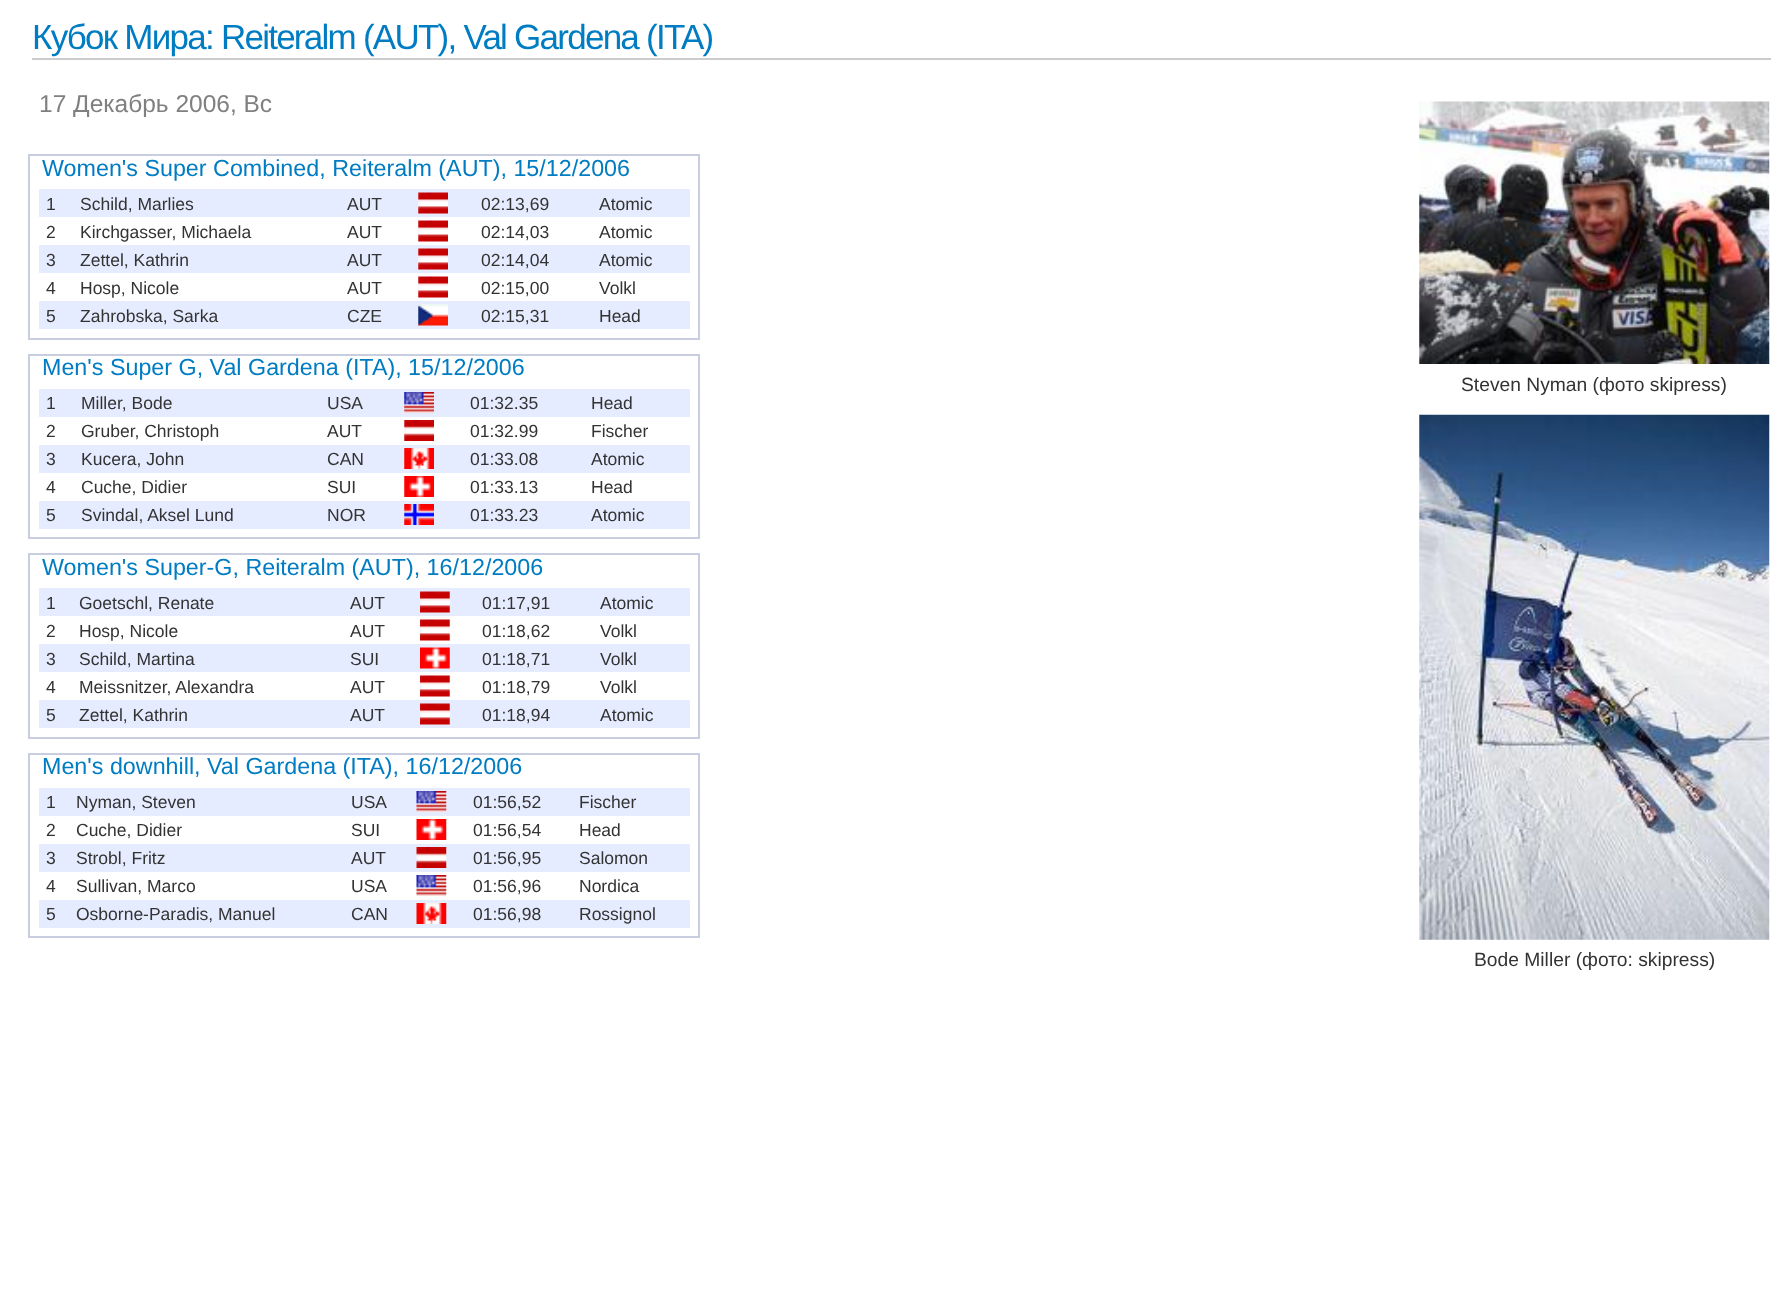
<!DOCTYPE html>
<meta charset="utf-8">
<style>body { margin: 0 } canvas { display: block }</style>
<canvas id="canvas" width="1791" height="1307"></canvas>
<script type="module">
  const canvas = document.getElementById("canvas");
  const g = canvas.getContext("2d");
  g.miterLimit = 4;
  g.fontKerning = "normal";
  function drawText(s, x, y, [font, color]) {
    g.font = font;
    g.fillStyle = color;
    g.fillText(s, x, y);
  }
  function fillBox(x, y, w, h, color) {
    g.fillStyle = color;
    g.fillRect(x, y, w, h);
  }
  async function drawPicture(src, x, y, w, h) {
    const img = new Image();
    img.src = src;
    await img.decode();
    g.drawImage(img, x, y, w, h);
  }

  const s1 = ["35px Liberation Sans", "#007CC3"];
  const s2 = ["24.5px Liberation Sans", "#808080"];
  const s3 = ["23.3px Liberation Sans", "#007CC3"];
  const s4 = ["17.5px Liberation Sans", "#333333"];
  const s5 = ["19.25px Liberation Sans", "#333333"];

  fillBox(0, 0, 1791, 1307, "#FFFFFF");
  fillBox(32, 58, 1739, 2, "#CCCCCC");
  g.letterSpacing = "-1.75px";
  drawText("Кубок Мира: Reiteralm (AUT), Val Gardena (ITA)", 32, 49, s1);
  g.letterSpacing = "0px";
  drawText("17 Декабрь 2006, Вс", 39, 112, s2);
  g.strokeStyle = "#C8CEDF";
  g.lineWidth = 2;
  g.strokeRect(29, 155, 670, 184);
  drawText("Women's Super Combined, Reiteralm (AUT), 15/12/2006", 42, 176, s3);
  fillBox(39, 189, 651, 28, "#E6ECFF");
  drawText("1", 46, 210, s4);
  drawText("Schild, Marlies", 80, 210, s4);
  drawText("AUT", 347, 210, s4);
  await drawPicture("pic1.png", 418, 192, 30, 22);
  drawText("02:13,69", 481, 210, s4);
  drawText("Atomic", 599, 210, s4);
  drawText("2", 46, 238, s4);
  drawText("Kirchgasser, Michaela", 80, 238, s4);
  drawText("AUT", 347, 238, s4);
  await drawPicture("pic2.png", 418, 220, 30, 22);
  drawText("02:14,03", 481, 238, s4);
  drawText("Atomic", 599, 238, s4);
  fillBox(39, 245, 651, 28, "#E6ECFF");
  drawText("3", 46, 266, s4);
  drawText("Zettel, Kathrin", 80, 266, s4);
  drawText("AUT", 347, 266, s4);
  await drawPicture("pic1.png", 418, 248, 30, 22);
  drawText("02:14,04", 481, 266, s4);
  drawText("Atomic", 599, 266, s4);
  drawText("4", 46, 294, s4);
  drawText("Hosp, Nicole", 80, 294, s4);
  drawText("AUT", 347, 294, s4);
  await drawPicture("pic3.png", 418, 276, 30, 22);
  drawText("02:15,00", 481, 294, s4);
  drawText("Volkl", 599, 294, s4);
  fillBox(39, 301, 651, 28, "#E6ECFF");
  drawText("5", 46, 322, s4);
  drawText("Zahrobska, Sarka", 80, 322, s4);
  drawText("CZE", 347, 322, s4);
  await drawPicture("pic4.png", 418, 304, 30, 22);
  drawText("02:15,31", 481, 322, s4);
  drawText("Head", 599, 322, s4);
  g.strokeRect(29, 355, 670, 183);
  drawText("Men's Super G, Val Gardena (ITA), 15/12/2006", 42, 375, s3);
  fillBox(39, 389, 651, 28, "#E6ECFF");
  drawText("1", 46, 409, s4);
  drawText("Miller, Bode", 81, 409, s4);
  drawText("USA", 327, 409, s4);
  await drawPicture("pic5.png", 404, 392, 30, 21);
  drawText("01:32.35", 470, 409, s4);
  drawText("Head", 591, 409, s4);
  drawText("2", 46, 437, s4);
  drawText("Gruber, Christoph", 81, 437, s4);
  drawText("AUT", 327, 437, s4);
  await drawPicture("pic6.png", 404, 420, 30, 21);
  drawText("01:32.99", 470, 437, s4);
  drawText("Fischer", 591, 437, s4);
  fillBox(39, 445, 651, 28, "#E6ECFF");
  drawText("3", 46, 465, s4);
  drawText("Kucera, John", 81, 465, s4);
  drawText("CAN", 327, 465, s4);
  await drawPicture("pic7.png", 404, 448, 30, 21);
  drawText("01:33.08", 470, 465, s4);
  drawText("Atomic", 591, 465, s4);
  drawText("4", 46, 493, s4);
  drawText("Cuche, Didier", 81, 493, s4);
  drawText("SUI", 327, 493, s4);
  await drawPicture("pic8.png", 404, 476, 30, 21);
  drawText("01:33.13", 470, 493, s4);
  drawText("Head", 591, 493, s4);
  fillBox(39, 501, 651, 28, "#E6ECFF");
  drawText("5", 46, 521, s4);
  drawText("Svindal, Aksel Lund", 81, 521, s4);
  drawText("NOR", 327, 521, s4);
  await drawPicture("pic9.png", 404, 504, 30, 21);
  drawText("01:33.23", 470, 521, s4);
  drawText("Atomic", 591, 521, s4);
  await drawPicture("pic10.png", 1419, 101, 351, 263);
  drawText("Steven Nyman (фото skipress)", 1461, 391, s5);
  await drawPicture("pic11.png", 1419, 414, 351, 526);
  drawText("Bode Miller (фото: skipress)", 1474, 966, s5);
  g.strokeRect(29, 554, 670, 184);
  drawText("Women's Super-G, Reiteralm (AUT), 16/12/2006", 42, 575, s3);
  fillBox(39, 588, 651, 28, "#E6ECFF");
  drawText("1", 46, 609, s4);
  drawText("Goetschl, Renate", 79, 609, s4);
  drawText("AUT", 350, 609, s4);
  await drawPicture("pic12.png", 420, 591, 30, 22);
  drawText("01:17,91", 482, 609, s4);
  drawText("Atomic", 600, 609, s4);
  drawText("2", 46, 637, s4);
  drawText("Hosp, Nicole", 79, 637, s4);
  drawText("AUT", 350, 637, s4);
  await drawPicture("pic13.png", 420, 619, 30, 22);
  drawText("01:18,62", 482, 637, s4);
  drawText("Volkl", 600, 637, s4);
  fillBox(39, 644, 651, 28, "#E6ECFF");
  drawText("3", 46, 665, s4);
  drawText("Schild, Martina", 79, 665, s4);
  drawText("SUI", 350, 665, s4);
  await drawPicture("pic14.png", 420, 647, 30, 22);
  drawText("01:18,71", 482, 665, s4);
  drawText("Volkl", 600, 665, s4);
  drawText("4", 46, 693, s4);
  drawText("Meissnitzer, Alexandra", 79, 693, s4);
  drawText("AUT", 350, 693, s4);
  await drawPicture("pic13.png", 420, 675, 30, 22);
  drawText("01:18,79", 482, 693, s4);
  drawText("Volkl", 600, 693, s4);
  fillBox(39, 700, 651, 28, "#E6ECFF");
  drawText("5", 46, 721, s4);
  drawText("Zettel, Kathrin", 79, 721, s4);
  drawText("AUT", 350, 721, s4);
  await drawPicture("pic12.png", 420, 703, 30, 22);
  drawText("01:18,94", 482, 721, s4);
  drawText("Atomic", 600, 721, s4);
  g.strokeRect(29, 754, 670, 183);
  drawText("Men's downhill, Val Gardena (ITA), 16/12/2006", 42, 774, s3);
  fillBox(39, 788, 651, 28, "#E6ECFF");
  drawText("1", 46, 808, s4);
  drawText("Nyman, Steven", 76, 808, s4);
  drawText("USA", 351, 808, s4);
  await drawPicture("pic15.png", 416, 791, 31, 21);
  drawText("01:56,52", 473, 808, s4);
  drawText("Fischer", 579, 808, s4);
  drawText("2", 46, 836, s4);
  drawText("Cuche, Didier", 76, 836, s4);
  drawText("SUI", 351, 836, s4);
  await drawPicture("pic16.png", 416, 819, 31, 21);
  drawText("01:56,54", 473, 836, s4);
  drawText("Head", 579, 836, s4);
  fillBox(39, 844, 651, 28, "#E6ECFF");
  drawText("3", 46, 864, s4);
  drawText("Strobl, Fritz", 76, 864, s4);
  drawText("AUT", 351, 864, s4);
  await drawPicture("pic17.png", 416, 847, 31, 21);
  drawText("01:56,95", 473, 864, s4);
  drawText("Salomon", 579, 864, s4);
  drawText("4", 46, 892, s4);
  drawText("Sullivan, Marco", 76, 892, s4);
  drawText("USA", 351, 892, s4);
  await drawPicture("pic18.png", 416, 875, 31, 21);
  drawText("01:56,96", 473, 892, s4);
  drawText("Nordica", 579, 892, s4);
  fillBox(39, 900, 651, 28, "#E6ECFF");
  drawText("5", 46, 920, s4);
  drawText("Osborne-Paradis, Manuel", 76, 920, s4);
  drawText("CAN", 351, 920, s4);
  await drawPicture("pic19.png", 416, 903, 31, 21);
  drawText("01:56,98", 473, 920, s4);
  drawText("Rossignol", 579, 920, s4);
</script>
